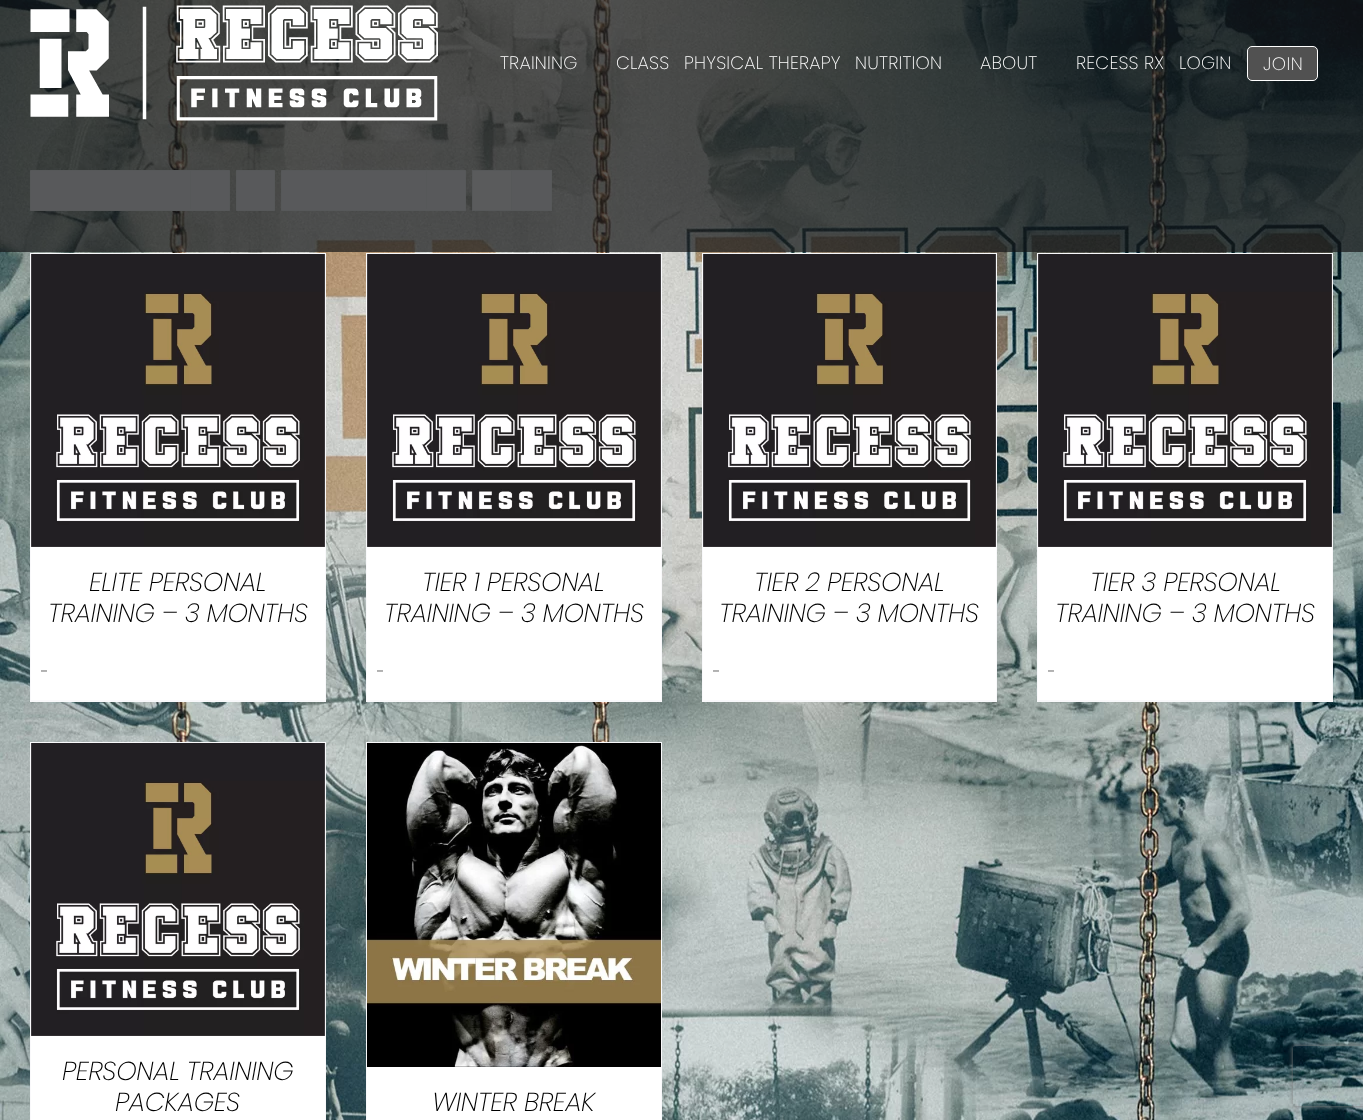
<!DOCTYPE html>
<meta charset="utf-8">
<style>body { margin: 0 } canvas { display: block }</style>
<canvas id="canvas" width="1363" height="1120"></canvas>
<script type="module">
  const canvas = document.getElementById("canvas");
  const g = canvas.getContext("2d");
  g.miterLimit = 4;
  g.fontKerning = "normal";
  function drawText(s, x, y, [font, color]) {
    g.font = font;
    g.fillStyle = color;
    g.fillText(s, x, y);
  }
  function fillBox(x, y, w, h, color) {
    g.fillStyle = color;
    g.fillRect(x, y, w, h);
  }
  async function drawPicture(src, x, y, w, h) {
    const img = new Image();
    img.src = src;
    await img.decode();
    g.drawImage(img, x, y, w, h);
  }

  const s1 = ["200 18px Poppins", "#FFFFFF"];
  const s2 = ["italic 200 26px Poppins", "#000000"];
  const s3 = ["200 16px Poppins", "#000000"];

  fillBox(0, 0, 1363, 1120, "#FFFFFF");
  await drawPicture("pic2.png", 0, 0, 1363, 1120);
  g.fillStyle = "#F9F9FB";
  g.beginPath();
  g.rect(30.5, 170.5, 199, 40);
  g.fill();
  g.strokeStyle = "#F2F3F5";
  g.stroke();
  fillBox(190, 170, 1, 39, "#F2F3F5");
  g.fillStyle = "#F9F9FB";
  g.beginPath();
  g.rect(236.5, 170.5, 38, 40);
  g.fill();
  g.stroke();
  g.beginPath();
  g.rect(281.5, 170.5, 184, 40);
  g.fill();
  g.stroke();
  fillBox(426, 170, 1, 39, "#F2F3F5");
  g.strokeRect(472.5, 170.5, 79, 40);
  fillBox(473, 171, 38, 39, "#FFFFFF");
  fillBox(511, 171, 1, 39, "#F2F3F5");
  fillBox(512, 171, 39, 39, "#F9F9FB");
  fillBox(0, 0, 1363, 252, "rgba(20, 22, 23, 0.7)");
  await drawPicture("pic1.png", 30, 5, 408, 116);
  g.letterSpacing = "0.2px";
  drawText("TRAINING", 500, 69, s1);
  drawText("CLASS", 616, 69, s1);
  drawText("PHYSICAL THERAPY", 684, 69, s1);
  drawText("NUTRITION", 855, 69, s1);
  drawText("ABOUT", 980, 69, s1);
  drawText("RECESS RX", 1076, 69, s1);
  drawText("LOGIN", 1179, 69, s1);
  g.fillStyle = "#515151";
  g.beginPath();
  g.roundRect(1247.5, 46.5, 70, 34, 4.5);
  g.fill();
  g.strokeStyle = "#FFFFFF";
  g.stroke();
  g.letterSpacing = "0.5px";
  drawText("JOIN", 1263, 70, s1);
  fillBox(31, 254, 294, 446, "#FFFFFF");
  fillBox(30, 253, 296, 1, "#F9F9FB");
  fillBox(325, 253, 1, 449, "#F9F9FB");
  fillBox(30, 700, 296, 2, "#F9F9FB");
  fillBox(30, 253, 1, 449, "#F9F9FB");
  await drawPicture("pic3.png", 31, 254, 294, 293);
  g.letterSpacing = "-0.4px";
  drawText("ELITE PERSONAL", 89, 591, s2);
  drawText("TRAINING – 3 MONTHS", 48, 622, s2);
  g.letterSpacing = "0px";
  drawText("-", 41, 677, s3);
  fillBox(367, 254, 294, 446, "#FFFFFF");
  fillBox(366, 253, 296, 1, "#F9F9FB");
  fillBox(661, 253, 1, 449, "#F9F9FB");
  fillBox(366, 700, 296, 2, "#F9F9FB");
  fillBox(366, 253, 1, 449, "#F9F9FB");
  await drawPicture("pic4.png", 367, 254, 294, 293);
  g.letterSpacing = "-0.4px";
  drawText("TIER 1 PERSONAL", 422, 591, s2);
  drawText("TRAINING – 3 MONTHS", 384, 622, s2);
  g.letterSpacing = "0px";
  drawText("-", 377, 677, s3);
  fillBox(703, 254, 293, 446, "#FFFFFF");
  fillBox(702, 253, 295, 1, "#F9F9FB");
  fillBox(996, 253, 1, 449, "#F9F9FB");
  fillBox(702, 700, 295, 2, "#F9F9FB");
  fillBox(702, 253, 1, 449, "#F9F9FB");
  await drawPicture("pic5.png", 703, 254, 293, 293);
  g.letterSpacing = "-0.4px";
  drawText("TIER 2 PERSONAL", 754, 591, s2);
  drawText("TRAINING – 3 MONTHS", 719, 622, s2);
  g.letterSpacing = "0px";
  drawText("-", 713, 677, s3);
  fillBox(1038, 254, 294, 446, "#FFFFFF");
  fillBox(1037, 253, 296, 1, "#F9F9FB");
  fillBox(1332, 253, 1, 449, "#F9F9FB");
  fillBox(1037, 700, 296, 2, "#F9F9FB");
  fillBox(1037, 253, 1, 449, "#F9F9FB");
  await drawPicture("pic6.png", 1038, 254, 294, 293);
  g.letterSpacing = "-0.4px";
  drawText("TIER 3 PERSONAL", 1090, 591, s2);
  drawText("TRAINING – 3 MONTHS", 1055, 622, s2);
  g.letterSpacing = "0px";
  drawText("-", 1048, 677, s3);
  fillBox(31, 743, 294, 377, "#FFFFFF");
  fillBox(30, 742, 296, 1, "#F9F9FB");
  fillBox(325, 742, 1, 378, "#F9F9FB");
  fillBox(30, 742, 1, 378, "#F9F9FB");
  await drawPicture("pic3.png", 31, 743, 294, 293);
  g.letterSpacing = "-0.4px";
  drawText("PERSONAL TRAINING", 62, 1080, s2);
  drawText("PACKAGES", 115, 1111, s2);
  fillBox(367, 1067, 294, 53, "#FFFFFF");
  fillBox(366, 742, 296, 1, "#F9F9FB");
  fillBox(661, 742, 1, 378, "#F9F9FB");
  fillBox(366, 742, 1, 378, "#F9F9FB");
  await drawPicture("pic7.png", 367, 743, 294, 324);
  drawText("WINTER BREAK", 432, 1111, s2);
  g.save();
  g.beginPath();
  g.moveTo(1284, 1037);
  g.lineTo(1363, 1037);
  g.lineTo(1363, 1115);
  g.lineTo(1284, 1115);
  g.closePath();
  g.moveTo(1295, 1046);
  g.lineTo(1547, 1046);
  g.bezierCurveTo(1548, 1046, 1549, 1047, 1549, 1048);
  g.lineTo(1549, 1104);
  g.bezierCurveTo(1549, 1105, 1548, 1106, 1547, 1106);
  g.lineTo(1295, 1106);
  g.bezierCurveTo(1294, 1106, 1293, 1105, 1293, 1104);
  g.lineTo(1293, 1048);
  g.bezierCurveTo(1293, 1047, 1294, 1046, 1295, 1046);
  g.closePath();
  g.clip("evenodd");
  g.fillStyle = "#808080";
  g.filter = "blur(2.5px)";
  g.beginPath();
  g.roundRect(1293, 1046, 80, 60, 2);
  g.fill();
  g.filter = "none";
  g.restore();
</script>
